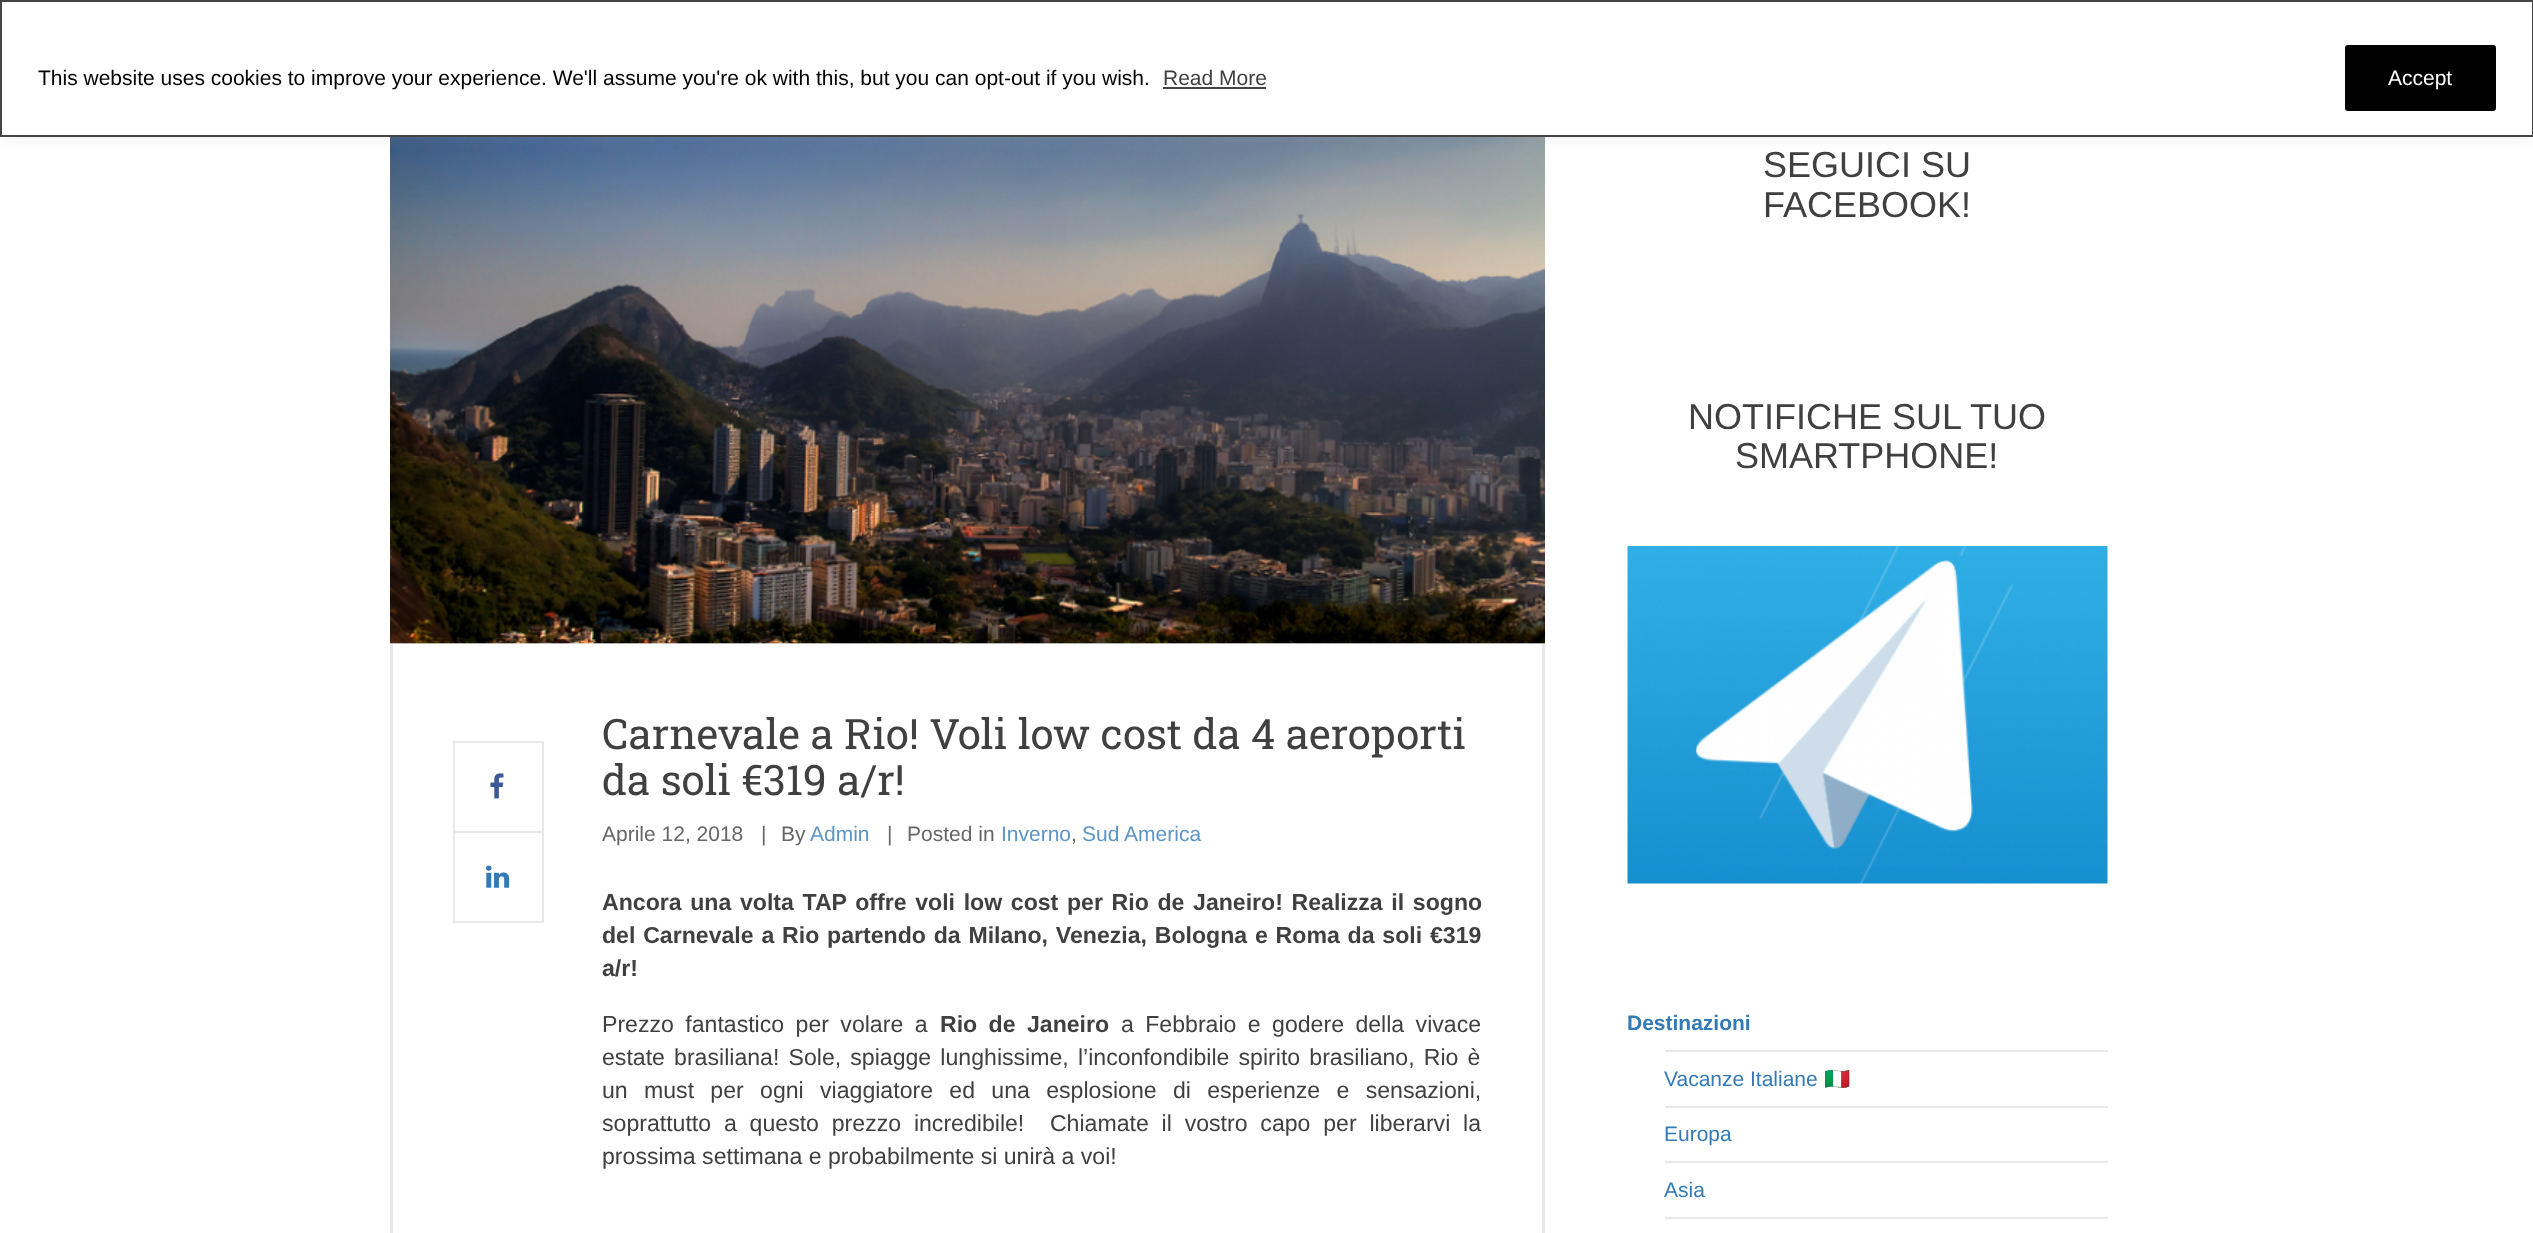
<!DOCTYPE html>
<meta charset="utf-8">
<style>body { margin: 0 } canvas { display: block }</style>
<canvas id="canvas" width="2533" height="1233"></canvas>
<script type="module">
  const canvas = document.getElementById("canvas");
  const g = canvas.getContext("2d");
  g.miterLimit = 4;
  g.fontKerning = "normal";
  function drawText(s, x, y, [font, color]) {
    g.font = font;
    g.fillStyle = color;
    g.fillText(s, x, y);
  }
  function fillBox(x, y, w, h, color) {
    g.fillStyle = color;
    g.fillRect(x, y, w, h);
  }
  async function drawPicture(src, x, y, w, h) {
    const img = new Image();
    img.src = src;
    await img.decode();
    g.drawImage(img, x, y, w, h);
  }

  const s1 = ["21px Liberation Sans", "#000000"];
  const s2 = ["21px Liberation Sans", "#404040"];
  const s3 = ["21px Liberation Sans", "#FFFFFF"];
  const s4 = ["42px Roboto Slab", "#404040"];
  const s5 = ["21px Liberation Sans", "#666666"];
  const s6 = ["21px Liberation Sans", "#5C95C5"];
  const s7 = ["bold 23.1px Liberation Sans", "#404040"];
  const s8 = ["23.1px Liberation Sans", "#404040"];
  const s9 = ["36px Liberation Sans", "#404040"];
  const s10 = ["bold 21px Liberation Sans", "#337AB7"];
  const s11 = ["21px Liberation Sans", "#337AB7"];
  const s12 = ["21px Noto Color Emoji", "#337AB7"];

  fillBox(0, 0, 2533, 1233, "#FFFFFF");
  g.strokeStyle = "#E8E8E8";
  g.lineWidth = 3;
  g.strokeRect(391.5, 642.5, 1152, 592);
  await drawPicture("pic1.png", 390, 137, 1155, 507);
  g.fillStyle = "rgba(172, 171, 171, 0.3)";
  g.filter = "blur(7.5px)";
  g.beginPath();
  g.rect(0, -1, 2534, 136);
  g.fill();
  g.filter = "none";
  g.fillStyle = "#FFFFFF";
  g.beginPath();
  g.rect(1, 1, 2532, 135);
  g.fill();
  g.strokeStyle = "#444444";
  g.lineWidth = 2;
  g.stroke();
  drawText("This website uses cookies to improve your experience. We'll assume you're ok with this, but you can opt-out if you wish.", 38, 85, s1);
  drawText("Read More", 1163, 85, s2);
  fillBox(1163, 87, 103, 2, "#444444");
  g.fillStyle = "#000000";
  g.beginPath();
  g.roundRect(2346.5, 46.5, 148, 63, 1.5);
  g.fill();
  g.strokeStyle = "#000000";
  g.lineWidth = 3;
  g.stroke();
  drawText("Accept", 2388, 85, s3);
  fillBox(453, 741, 90, 2, "#E8E8E8");
  fillBox(542, 741, 2, 182, "#E8E8E8");
  fillBox(453, 741, 2, 182, "#E8E8E8");
  fillBox(455, 831, 87, 2, "#E8E8E8");
  await drawPicture("pic2.png", 490, 773, 14, 26);
  fillBox(455, 921, 87, 2, "#E8E8E8");
  await drawPicture("pic3.png", 486, 865, 24, 23);
  drawText("Carnevale a Rio! Voli low cost da 4 aeroporti", 602, 749, s4);
  drawText("da soli €319 a/r!", 602, 795, s4);
  drawText("Aprile 12, 2018", 602, 841, s5);
  drawText("|", 761, 841, s5);
  drawText("By", 781, 841, s5);
  drawText("Admin", 810, 841, s6);
  drawText("|", 887, 841, s5);
  drawText("Posted in", 907, 841, s5);
  drawText("Inverno", 1001, 841, s6);
  drawText(",", 1071, 841, s5);
  drawText("Sud America", 1082, 841, s6);
  g.wordSpacing = "2.25px";
  drawText("Ancora una volta TAP offre voli low cost per Rio de Janeiro! Realizza il sogno", 602, 910, s7);
  g.wordSpacing = "1.4px";
  drawText("del Carnevale a Rio partendo da Milano, Venezia, Bologna e Roma da soli €319", 602, 943, s7);
  g.wordSpacing = "0px";
  drawText("a/r!", 602, 976, s7);
  g.wordSpacing = "5px";
  drawText("Prezzo fantastico per volare a", 602, 1032, s8);
  drawText("Rio de Janeiro", 940, 1032, s7);
  drawText("a Febbraio e godere della vivace", 1121, 1032, s8);
  g.wordSpacing = "2.75px";
  drawText("estate brasiliana! Sole, spiagge lunghissime, l’inconfondibile spirito brasiliano, Rio è", 602, 1065, s8);
  g.wordSpacing = "9.9px";
  drawText("un must per ogni viaggiatore ed una esplosione di esperienze e sensazioni,", 602, 1098, s8);
  g.wordSpacing = "6.4px";
  drawText("soprattutto a questo prezzo incredibile!  Chiamate il vostro capo per liberarvi la", 602, 1131, s8);
  g.wordSpacing = "0px";
  drawText("prossima settimana e probabilmente si unirà a voi!", 602, 1164, s8);
  drawText("SEGUICI SU", 1763, 177, s9);
  drawText("FACEBOOK!", 1763, 217, s9);
  drawText("NOTIFICHE SUL TUO", 1688, 429, s9);
  drawText("SMARTPHONE!", 1735, 468, s9);
  await drawPicture("pic4.png", 1627, 546, 481, 338);
  drawText("Destinazioni", 1627, 1030, s10);
  fillBox(1665, 1050, 443, 2, "#E8E8E8");
  fillBox(1665, 1106, 443, 2, "#E8E8E8");
  drawText("Vacanze Italiane", 1664, 1086, s11);
  drawText("🇮🇹", 1824, 1086, s12);
  fillBox(1665, 1161, 443, 2, "#E8E8E8");
  drawText("Europa", 1664, 1141, s11);
  fillBox(1665, 1217, 443, 2, "#E8E8E8");
  drawText("Asia", 1664, 1197, s11);
</script>
